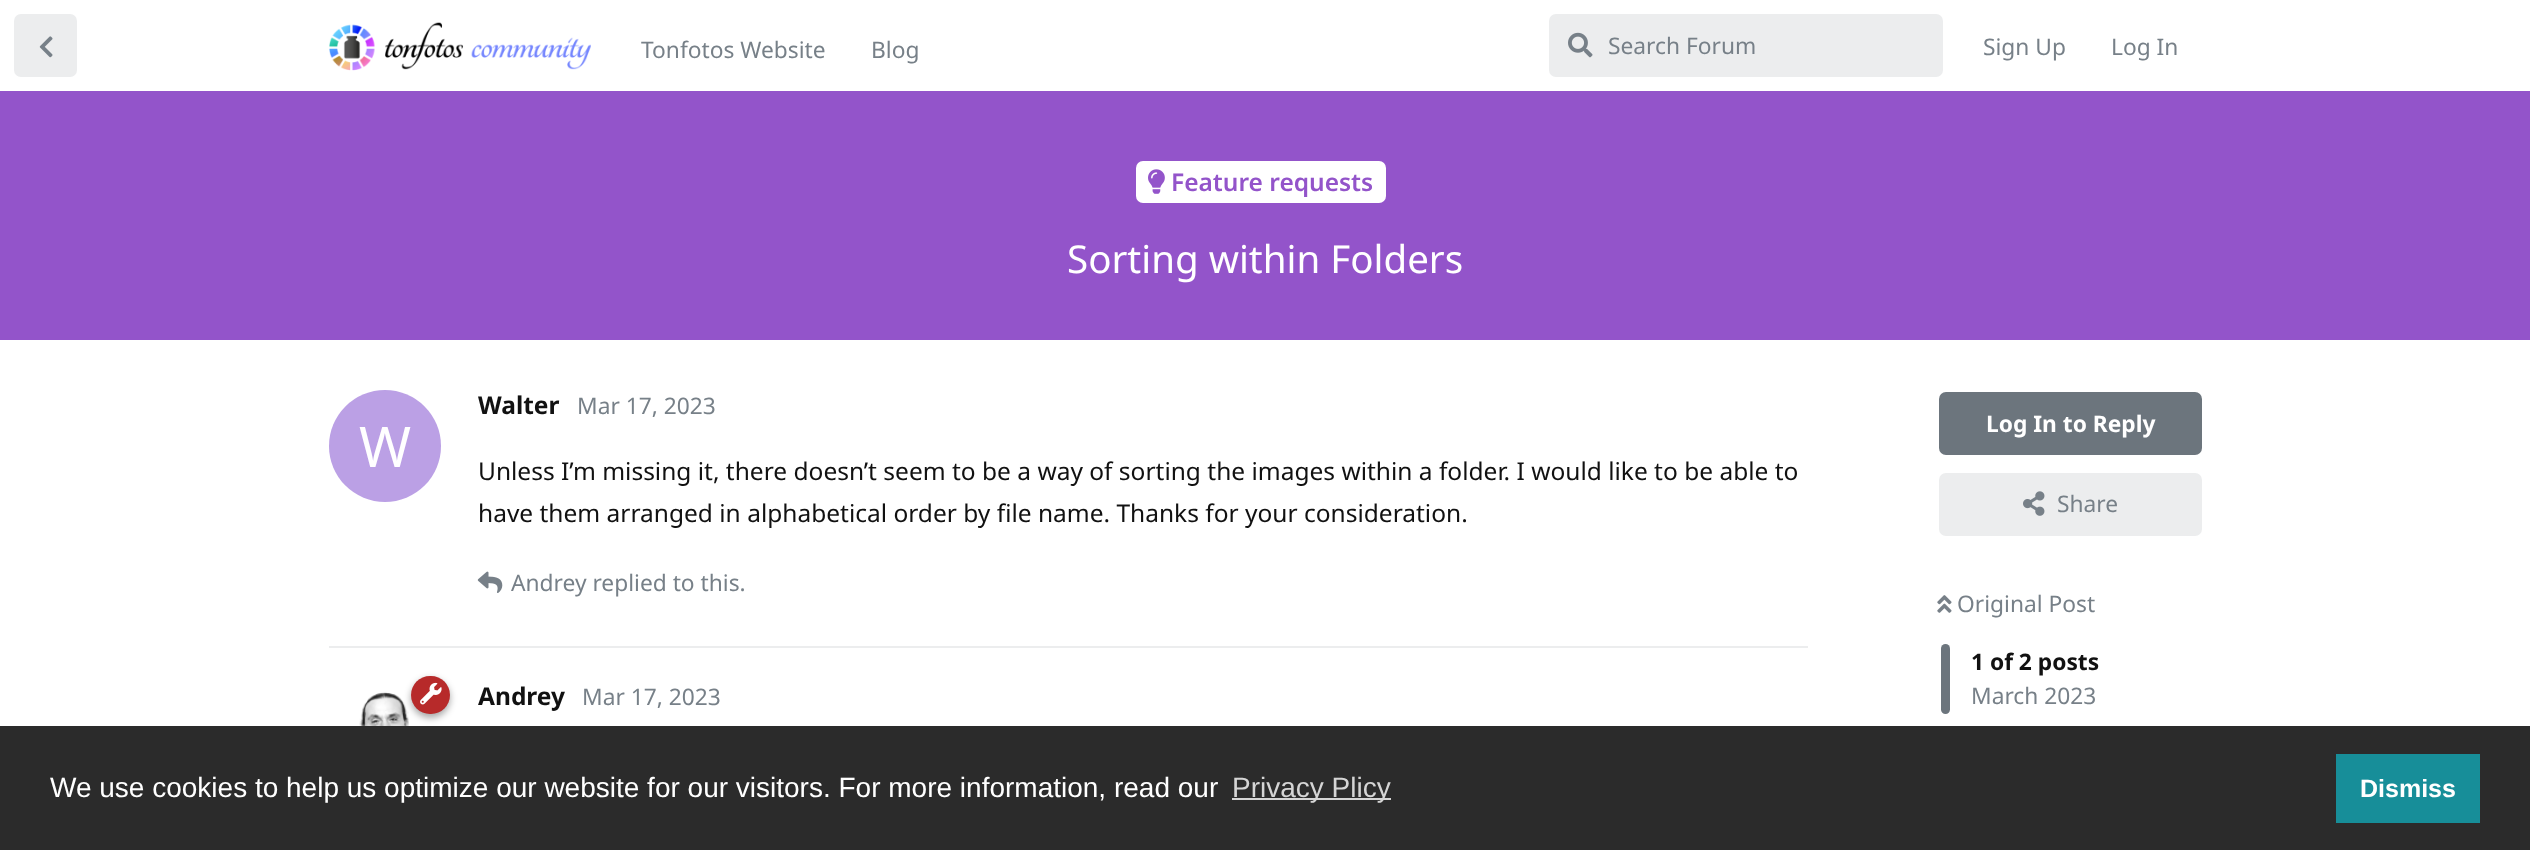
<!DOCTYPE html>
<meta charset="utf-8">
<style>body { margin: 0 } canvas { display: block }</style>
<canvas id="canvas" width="2530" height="850"></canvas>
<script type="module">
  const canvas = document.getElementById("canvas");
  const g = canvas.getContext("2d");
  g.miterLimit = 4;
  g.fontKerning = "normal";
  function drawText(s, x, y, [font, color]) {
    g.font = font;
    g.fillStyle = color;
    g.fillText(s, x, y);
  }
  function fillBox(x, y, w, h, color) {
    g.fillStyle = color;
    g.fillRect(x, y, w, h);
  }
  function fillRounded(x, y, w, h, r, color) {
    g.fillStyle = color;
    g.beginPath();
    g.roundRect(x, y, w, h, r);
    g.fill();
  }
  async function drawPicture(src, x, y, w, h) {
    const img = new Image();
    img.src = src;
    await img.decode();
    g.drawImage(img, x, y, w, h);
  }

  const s1 = ["22.75px Noto Sans", "#778088"];
  const s2 = ["600 24.5px Noto Sans", "#9354CA"];
  const s3 = ["38.5px Noto Sans", "#FFFFFF"];
  const s4 = ["bold 24.5px Noto Sans", "#111111"];
  const s5 = ["56px Noto Sans", "#FFFFFF"];
  const s6 = ["24.5px Noto Sans", "#111111"];
  const s7 = ["bold 22.75px Noto Sans", "#FFFFFF"];
  const s8 = ["bold 22.75px Noto Sans", "#111111"];
  const s9 = ["28px Liberation Sans", "#FFFFFF"];
  const s10 = ["28px Liberation Sans", "#D5D5D5"];
  const s11 = ["bold 25px Liberation Sans", "#FFFFFF"];

  fillBox(0, 0, 2530, 850, "#FFFFFF");
  fillRounded(14, 14, 63, 63, 7, "#ECEDEE");
  await drawPicture("pic1.png", 39, 36, 14, 22);
  await drawPicture("pic2.png", 329, 22, 262, 49);
  drawText("Tonfotos Website", 641, 58, s1);
  drawText("Blog", 871, 58, s1);
  fillRounded(1549, 14, 394, 63, 7, "#ECEDEE");
  await drawPicture("pic3.png", 1568, 32, 25, 26);
  drawText("Search Forum", 1608, 54, s1);
  drawText("Sign Up", 1983, 55, s1);
  drawText("Log In", 2111, 55, s1);
  fillBox(0, 91, 2530, 249, "#9354CA");
  fillRounded(1136, 161, 250, 42, 7, "#FFFFFF");
  await drawPicture("pic4.png", 1148, 169, 17, 25);
  drawText("Feature requests", 1171, 191, s2);
  drawText("Sorting within Folders", 1067, 273, s3);
  fillBox(329, 646, 1479, 2, "#ECEDEE");
  drawText("Walter", 478, 414, s4);
  g.fillStyle = "#BBA0E5";
  g.beginPath();
  g.arc(385, 446, 56, 0, Math.PI * 2);
  g.fill();
  drawText("W", 359, 467, s5);
  drawText("Mar 17, 2023", 577, 414, s1);
  drawText("Unless I’m missing it, there doesn’t seem to be a way of sorting the images within a folder. I would like to be able to", 478, 480, s6);
  drawText("have them arranged in alphabetical order by file name. Thanks for your consideration.", 478, 522, s6);
  await drawPicture("pic5.png", 477, 571, 26, 22);
  drawText("Andrey replied to this.", 511, 591, s1);
  await drawPicture("pic7.png", 330, 681, 110, 45);
  g.fillStyle = "rgba(0, 0, 0, 0.35)";
  g.filter = "blur(3.5px)";
  g.beginPath();
  g.roundRect(411, 679, 39, 39, 19.5);
  g.fill();
  g.filter = "none";
  fillRounded(411, 676, 39, 38, 19, "#B72A2A");
  await drawPicture("pic6.png", 420, 682, 22, 23);
  drawText("Andrey", 478, 705, s4);
  drawText("Mar 17, 2023", 582, 705, s1);
  fillRounded(1939, 392, 263, 63, 7, "#6C757D");
  drawText("Log In to Reply", 1986, 432, s7);
  fillRounded(1939, 473, 263, 63, 7, "#ECEDEE");
  await drawPicture("pic8.png", 2023, 491, 22, 25);
  drawText("Share", 2057, 512, s1);
  await drawPicture("pic9.png", 1937, 595, 15, 18);
  drawText("Original Post", 1957, 612, s1);
  fillRounded(1941, 644, 9, 70, 4.5, "#6C757D");
  drawText("1 of 2 posts", 1971, 670, s8);
  drawText("March 2023", 1971, 704, s1);
  fillBox(0, 726, 2530, 124, "#2B2B2B");
  drawText("We use cookies to help us optimize our website for our visitors. For more information, read our", 50, 797, s9);
  fillBox(1232, 798, 159, 2, "#D5D5D5");
  drawText("Privacy Plicy", 1232, 797, s10);
  fillBox(2336, 754, 144, 69, "#178E99");
  drawText("Dismiss", 2360, 797, s11);
</script>
